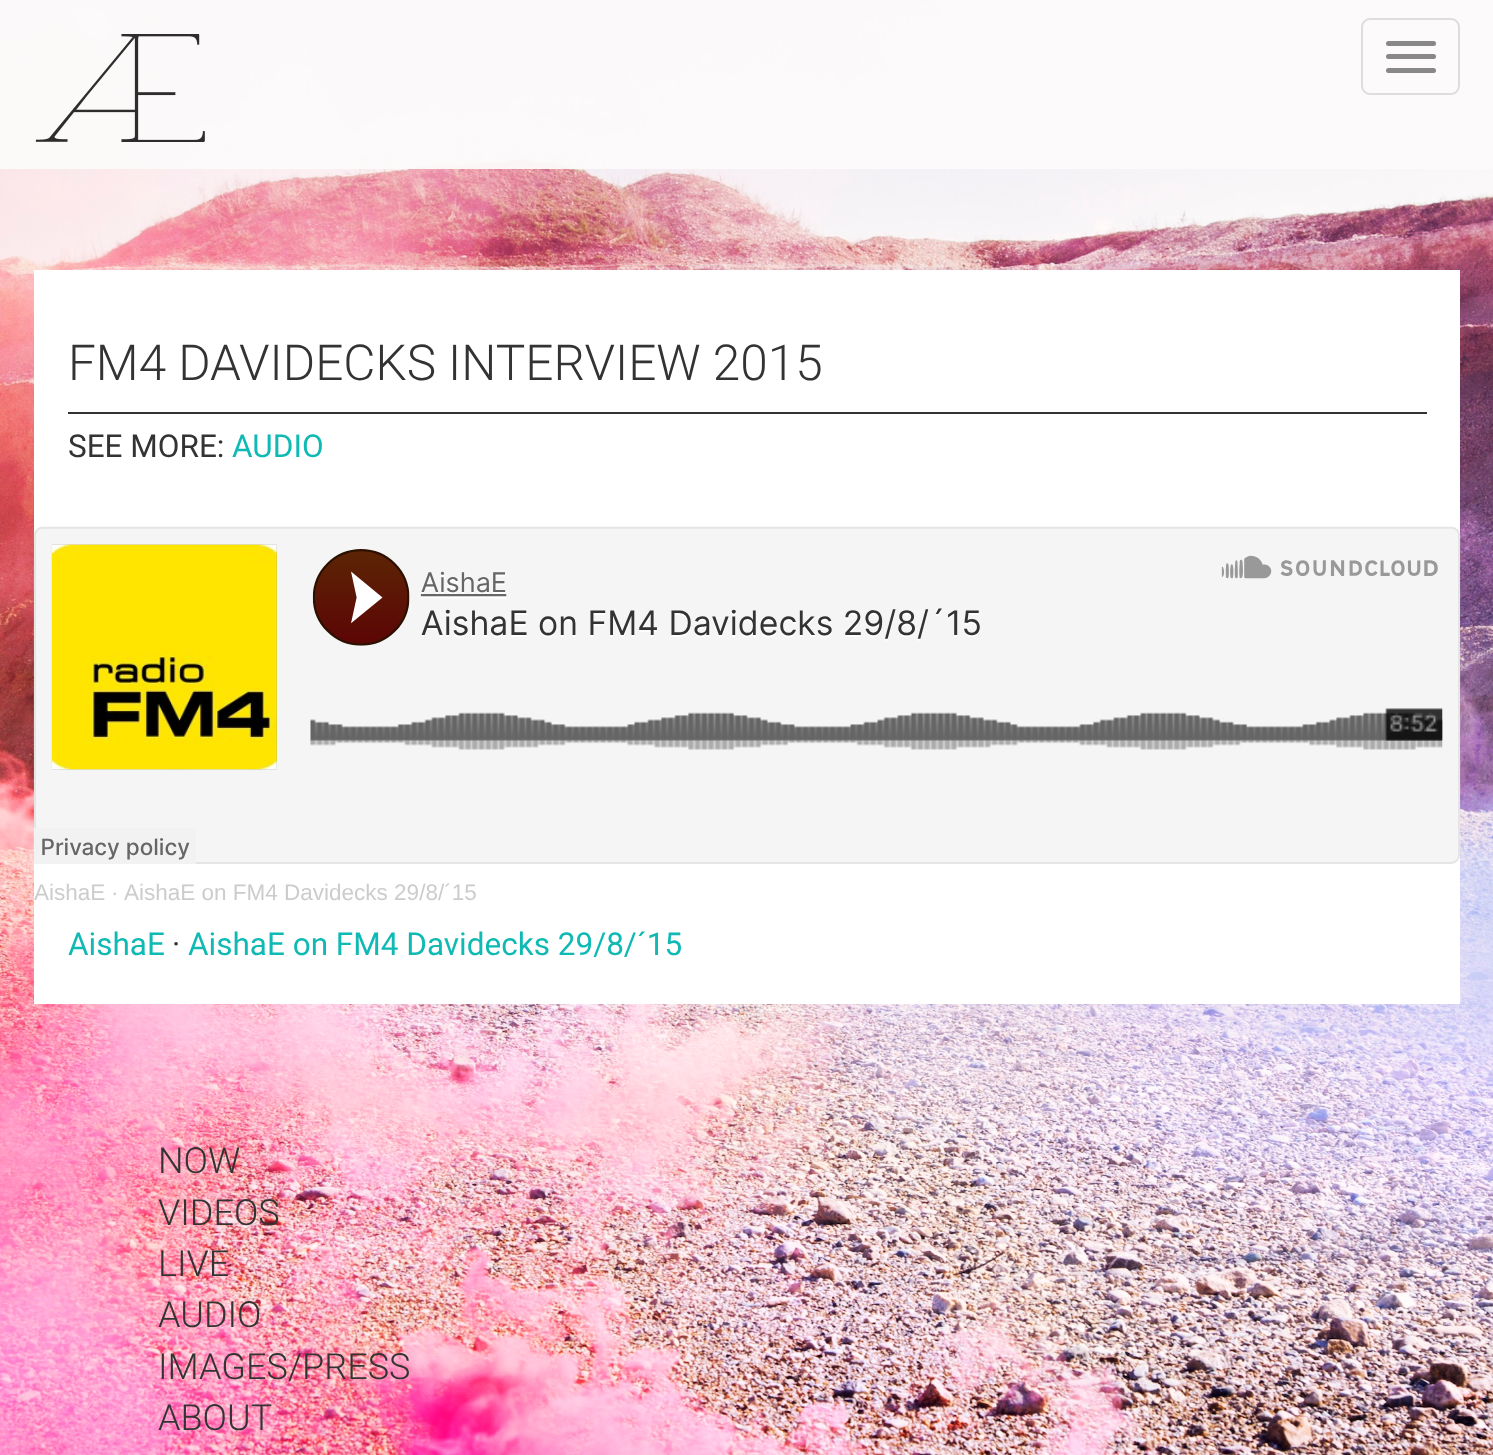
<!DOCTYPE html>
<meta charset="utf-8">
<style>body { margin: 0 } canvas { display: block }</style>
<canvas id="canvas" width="1493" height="1455"></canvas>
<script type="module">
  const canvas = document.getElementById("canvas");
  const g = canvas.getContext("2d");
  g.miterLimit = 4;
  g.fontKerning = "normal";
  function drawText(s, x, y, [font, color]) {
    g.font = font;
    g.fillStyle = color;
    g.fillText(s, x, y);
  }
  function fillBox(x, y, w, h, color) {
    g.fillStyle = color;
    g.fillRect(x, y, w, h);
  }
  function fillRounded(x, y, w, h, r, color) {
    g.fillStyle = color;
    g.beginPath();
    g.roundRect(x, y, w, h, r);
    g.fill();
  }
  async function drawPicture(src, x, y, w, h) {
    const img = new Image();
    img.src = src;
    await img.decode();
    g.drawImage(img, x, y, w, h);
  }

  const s1 = ["300 49.5px Roboto", "#333333"];
  const s2 = ["31.5px Roboto", "#333333"];
  const s3 = ["31.5px Roboto", "#0FB9B4"];
  const s4 = ["22.5px Liberation Sans", "#CCCCCC"];
  const s5 = ["300 36px Roboto", "#333333"];

  fillBox(0, 0, 1493, 1455, "#FFFFFF");
  await drawPicture("pic1.png", 0, 0, 1493, 1455);
  fillBox(0, 0, 1493, 169, "rgba(252, 250, 250, 0.95)");
  await drawPicture("pic2.png", 35, 34, 170, 108);
  g.beginPath();
  g.roundRect(1362, 19, 97, 75, 8);
  g.strokeStyle = "#DDDDDD";
  g.lineWidth = 2;
  g.stroke();
  fillRounded(1386, 41, 50, 5, 2.5, "#888888");
  fillRounded(1386, 54, 50, 5, 2.5, "#888888");
  fillRounded(1386, 68, 50, 5, 2.5, "#888888");
  fillBox(34, 270, 1426, 734, "#FFFFFF");
  fillBox(68, 412, 1359, 2, "#333333");
  drawText("FM4 DAVIDECKS INTERVIEW 2015", 68, 380, s1);
  drawText("SEE MORE:", 68, 457, s2);
  drawText("AUDIO", 232, 457, s3);
  await drawPicture("pic3.png", 33, 526, 1428, 338);
  drawText("AishaE", 34, 900, s4);
  drawText("·", 111, 900, s4);
  drawText("AishaE on FM4 Davidecks 29/8/´15", 124, 900, s4);
  drawText("AishaE", 68, 955, s3);
  drawText("·", 172, 955, s2);
  drawText("AishaE on FM4 Davidecks 29/8/´15", 188, 955, s3);
  drawText("NOW", 158, 1173, s5);
  drawText("VIDEOS", 158, 1225, s5);
  drawText("LIVE", 158, 1276, s5);
  drawText("AUDIO", 158, 1327, s5);
  drawText("IMAGES/PRESS", 158, 1379, s5);
  drawText("ABOUT", 158, 1430, s5);
</script>
